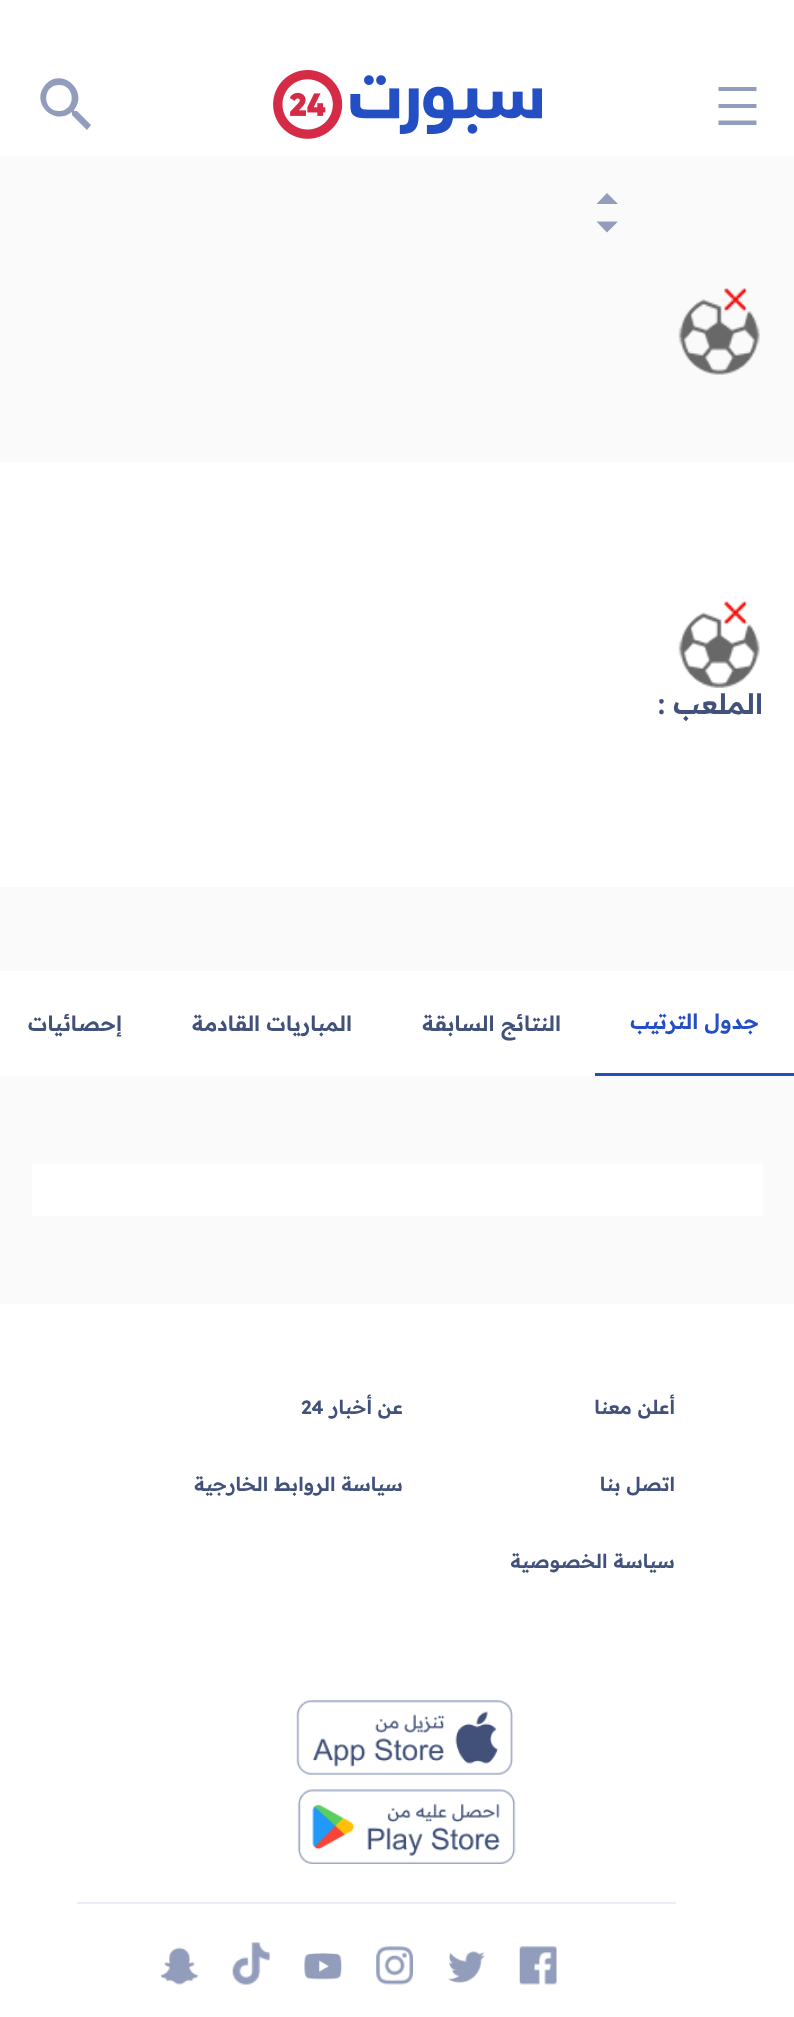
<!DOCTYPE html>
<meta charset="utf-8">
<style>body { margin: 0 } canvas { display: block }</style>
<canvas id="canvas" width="794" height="2017"></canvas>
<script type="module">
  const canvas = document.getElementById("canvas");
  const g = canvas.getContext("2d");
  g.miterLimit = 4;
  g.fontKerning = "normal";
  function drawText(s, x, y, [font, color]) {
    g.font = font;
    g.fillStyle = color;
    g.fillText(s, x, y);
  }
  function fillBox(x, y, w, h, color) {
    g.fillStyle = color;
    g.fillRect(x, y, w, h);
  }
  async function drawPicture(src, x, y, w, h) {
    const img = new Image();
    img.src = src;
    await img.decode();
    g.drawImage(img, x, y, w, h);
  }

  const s1 = ["600 28px Readex Pro", "#41517A"];
  const s2 = ["600 21px Readex Pro", "#234EC4"];
  const s3 = ["600 21px Readex Pro", "#41517A"];
  const s4 = ["600 19.25px Readex Pro", "#41517A"];

  fillBox(0, 0, 794, 2017, "#FAFAFA");
  fillBox(0, 0, 794, 156, "#FFFFFF");
  g.fillStyle = "#929DBB";
  g.beginPath();
  g.moveTo(718.5, 87);
  g.lineTo(756.5, 87);
  g.lineTo(756.5, 91);
  g.lineTo(718.5, 91);
  g.closePath();
  g.moveTo(718.5, 120.5);
  g.lineTo(756.5, 120.5);
  g.lineTo(756.5, 125);
  g.lineTo(718.5, 125);
  g.closePath();
  g.moveTo(718.5, 104);
  g.lineTo(756.5, 104);
  g.lineTo(756.5, 108);
  g.lineTo(718.5, 108);
  g.closePath();
  g.fill();
  await drawPicture("pic1.png", 273, 70, 269, 69);
  g.beginPath();
  g.moveTo(77, 111);
  g.lineTo(74, 111);
  g.lineTo(74, 110);
  g.bezierCurveTo(89, 92, 63, 67, 46, 84);
  g.bezierCurveTo(29, 102, 54, 127, 72, 112);
  g.lineTo(72, 113);
  g.lineTo(72, 115);
  g.lineTo(87, 130);
  g.lineTo(91, 125);
  g.closePath();
  g.moveTo(59, 111);
  g.bezierCurveTo(42, 111, 42, 85, 59, 85);
  g.bezierCurveTo(76, 85, 76, 111, 59, 111);
  g.closePath();
  g.fill();
  g.beginPath();
  g.moveTo(596.5, 204);
  g.lineTo(607, 193);
  g.lineTo(618, 204);
  g.closePath();
  g.moveTo(596.5, 221.5);
  g.lineTo(607, 232.5);
  g.lineTo(618, 221.5);
  g.closePath();
  g.fill();
  await drawPicture("pic2.png", 678, 288, 82, 87);
  fillBox(0, 462, 794, 425, "#FFFFFF");
  await drawPicture("pic3.png", 678, 601, 82, 87);
  g.direction = "rtl";
  drawText("الملعب :", 763, 714, s1);
  fillBox(0, 971, 794, 105, "#FFFFFF");
  fillBox(595, 1073, 199, 3, "#234EC4");
  drawText("جدول الترتيب", 759, 1029, s2);
  drawText("النتائج السابقة", 561, 1031, s3);
  drawText("المباريات القادمة", 352, 1031, s3);
  drawText("إحصائيات", 122, 1031, s3);
  fillBox(32, 1164, 731, 52, "#FFFFFF");
  fillBox(0, 1304, 794, 713, "#FFFFFF");
  drawText("أعلن معنا", 675, 1414, s4);
  drawText("عن أخبار", 403, 1414, s4);
  g.direction = "ltr";
  drawText("24", 301, 1414, s4);
  g.direction = "rtl";
  drawText("اتصل بنا", 675, 1491, s4);
  drawText("سياسة الروابط الخارجية", 403, 1491, s4);
  drawText("سياسة الخصوصية", 675, 1568, s4);
  await drawPicture("pic4.png", 296, 1700, 217, 75);
  await drawPicture("pic5.png", 297, 1789, 219, 75);
  fillBox(77, 1902, 599, 2, "#E9EDF9");
  await drawPicture("pic6.png", 519, 1946, 38, 39);
  await drawPicture("pic7.png", 448, 1951, 37, 32);
  await drawPicture("pic8.png", 376, 1946, 37, 39);
  await drawPicture("pic9.png", 304, 1953, 38, 27);
  await drawPicture("pic10.png", 232, 1942, 38, 43);
  await drawPicture("pic11.png", 161, 1947, 37, 38);
</script>
